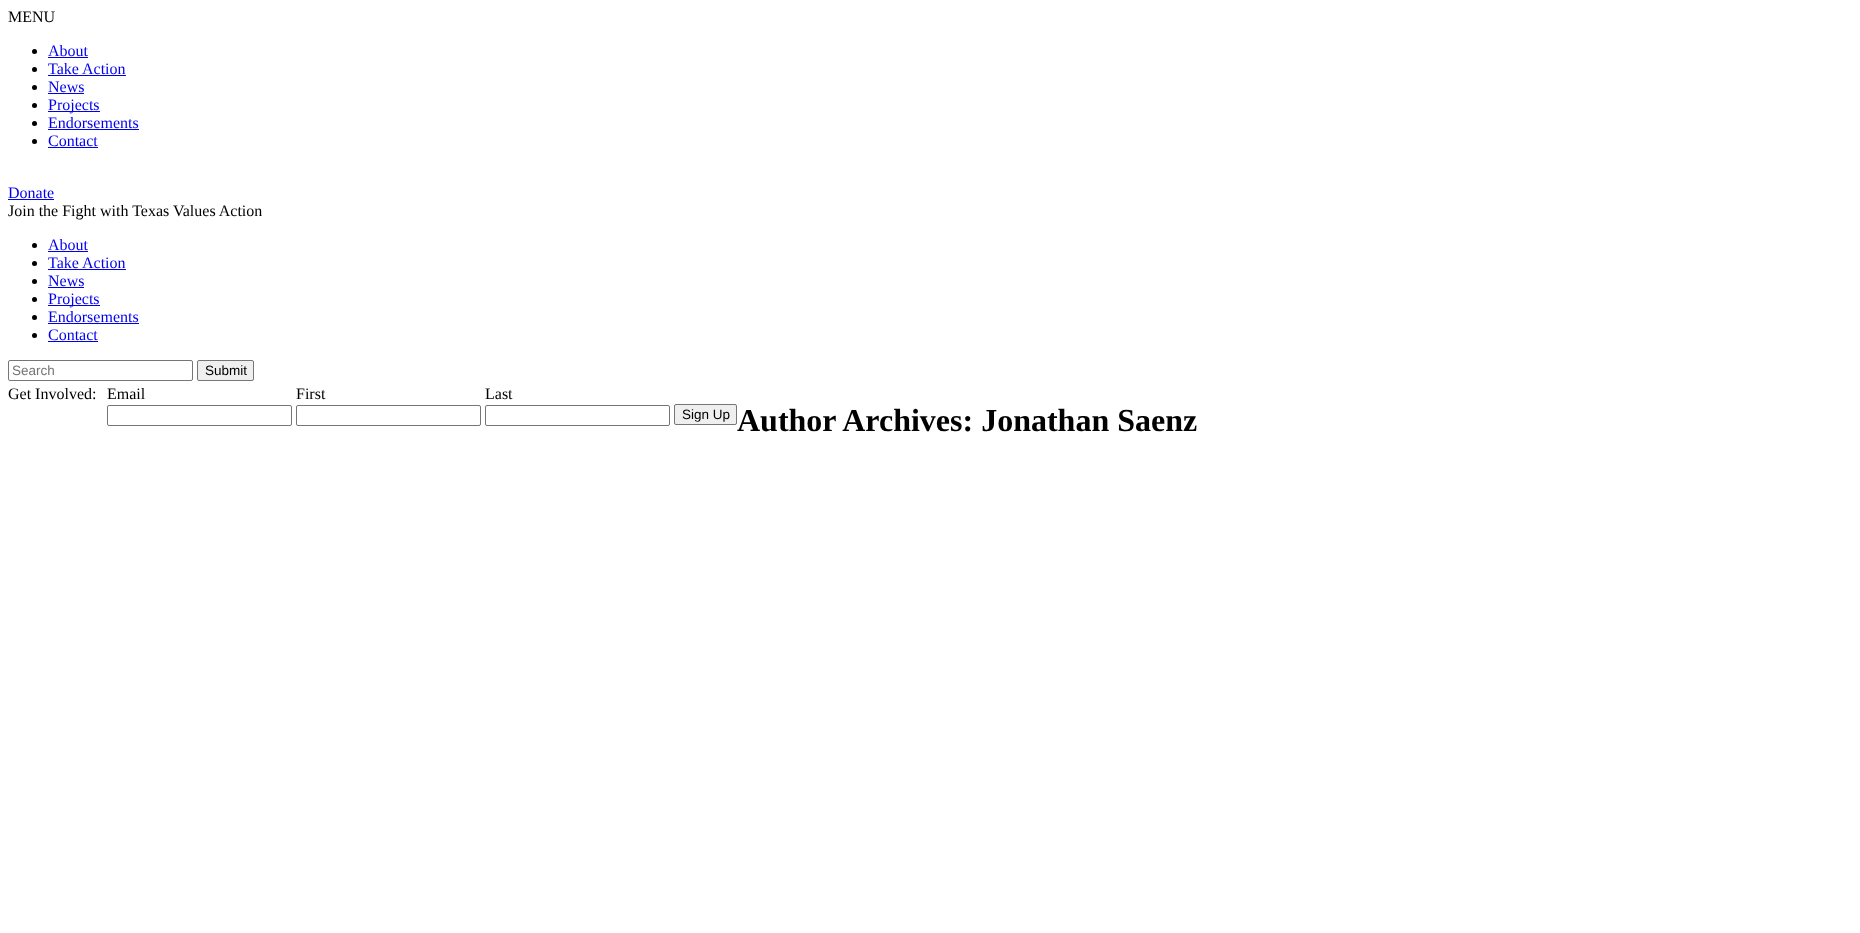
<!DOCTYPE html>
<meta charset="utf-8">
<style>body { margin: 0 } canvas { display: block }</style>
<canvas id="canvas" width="1860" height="933"></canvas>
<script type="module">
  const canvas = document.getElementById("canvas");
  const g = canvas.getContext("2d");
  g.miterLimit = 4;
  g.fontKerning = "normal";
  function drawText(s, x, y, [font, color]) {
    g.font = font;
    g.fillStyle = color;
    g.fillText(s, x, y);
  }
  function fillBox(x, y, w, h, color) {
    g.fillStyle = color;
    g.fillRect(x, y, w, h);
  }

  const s1 = ["16px Liberation Serif", "#000000"];
  const s2 = ["16px Liberation Serif", "#0000EE"];
  const s3 = ["13.5px Liberation Sans", "#757575"];
  const s4 = ["13.5px Liberation Sans", "#000000"];
  const s5 = ["bold 32px Liberation Serif", "#000000"];

  fillBox(0, 0, 1860, 933, "#FFFFFF");
  drawText("MENU", 8, 22, s1);
  g.beginPath();
  g.arc(34.5, 51.5, 2.5, 0, Math.PI * 2);
  g.fill();
  drawText("About", 48, 56, s2);
  fillBox(48, 57, 40, 1, "#0000EE");
  g.fillStyle = "#000000";
  g.beginPath();
  g.arc(34.5, 69.5, 2.5, 0, Math.PI * 2);
  g.fill();
  drawText("Take Action", 48, 74, s2);
  fillBox(48, 75, 78, 1, "#0000EE");
  g.fillStyle = "#000000";
  g.beginPath();
  g.arc(34.5, 87.5, 2.5, 0, Math.PI * 2);
  g.fill();
  drawText("News", 48, 92, s2);
  fillBox(48, 93, 36, 1, "#0000EE");
  g.fillStyle = "#000000";
  g.beginPath();
  g.arc(34.5, 105.5, 2.5, 0, Math.PI * 2);
  g.fill();
  fillBox(48, 111, 52, 1, "#0000EE");
  drawText("Projects", 48, 110, s2);
  g.fillStyle = "#000000";
  g.beginPath();
  g.arc(34.5, 123.5, 2.5, 0, Math.PI * 2);
  g.fill();
  drawText("Endorsements", 48, 128, s2);
  fillBox(48, 129, 91, 1, "#0000EE");
  g.fillStyle = "#000000";
  g.beginPath();
  g.arc(34.5, 141.5, 2.5, 0, Math.PI * 2);
  g.fill();
  drawText("Contact", 48, 146, s2);
  fillBox(48, 147, 50, 1, "#0000EE");
  drawText("Donate", 8, 198, s2);
  fillBox(8, 199, 46, 1, "#0000EE");
  drawText("Join the Fight with Texas Values Action", 8, 216, s1);
  g.beginPath();
  g.arc(34.5, 245.5, 2.5, 0, Math.PI * 2);
  g.fill();
  drawText("About", 48, 250, s2);
  fillBox(48, 251, 40, 1, "#0000EE");
  g.fillStyle = "#000000";
  g.beginPath();
  g.arc(34.5, 263.5, 2.5, 0, Math.PI * 2);
  g.fill();
  drawText("Take Action", 48, 268, s2);
  fillBox(48, 269, 78, 1, "#0000EE");
  g.fillStyle = "#000000";
  g.beginPath();
  g.arc(34.5, 281.5, 2.5, 0, Math.PI * 2);
  g.fill();
  drawText("News", 48, 286, s2);
  fillBox(48, 287, 36, 1, "#0000EE");
  g.fillStyle = "#000000";
  g.beginPath();
  g.arc(34.5, 299.5, 2.5, 0, Math.PI * 2);
  g.fill();
  fillBox(48, 305, 52, 1, "#0000EE");
  drawText("Projects", 48, 304, s2);
  g.fillStyle = "#000000";
  g.beginPath();
  g.arc(34.5, 317.5, 2.5, 0, Math.PI * 2);
  g.fill();
  drawText("Endorsements", 48, 322, s2);
  fillBox(48, 323, 91, 1, "#0000EE");
  g.fillStyle = "#000000";
  g.beginPath();
  g.arc(34.5, 335.5, 2.5, 0, Math.PI * 2);
  g.fill();
  drawText("Contact", 48, 340, s2);
  fillBox(48, 341, 50, 1, "#0000EE");
  g.beginPath();
  g.roundRect(8.5, 360.5, 184, 20, 1.5);
  g.strokeStyle = "#767676";
  g.stroke();
  drawText("Search", 12, 375, s3);
  g.fillStyle = "#EFEFEF";
  g.beginPath();
  g.roundRect(197.5, 360.5, 56, 20, 1.5);
  g.fill();
  g.stroke();
  drawText("Submit", 205, 375, s4);
  drawText("Get Involved:", 8, 399, s1);
  drawText("Email", 107, 399, s1);
  g.beginPath();
  g.roundRect(107.5, 405.5, 184, 20, 1.5);
  g.stroke();
  drawText("First", 296, 399, s1);
  g.beginPath();
  g.roundRect(296.5, 405.5, 184, 20, 1.5);
  g.stroke();
  drawText("Last", 485, 399, s1);
  g.beginPath();
  g.roundRect(485.5, 405.5, 184, 20, 1.5);
  g.stroke();
  g.fillStyle = "#EFEFEF";
  g.beginPath();
  g.roundRect(674.5, 404.5, 62, 20, 1.5);
  g.fill();
  g.stroke();
  drawText("Sign Up", 682, 419, s4);
  drawText("Author Archives: Jonathan Saenz", 737, 431, s5);
</script>
